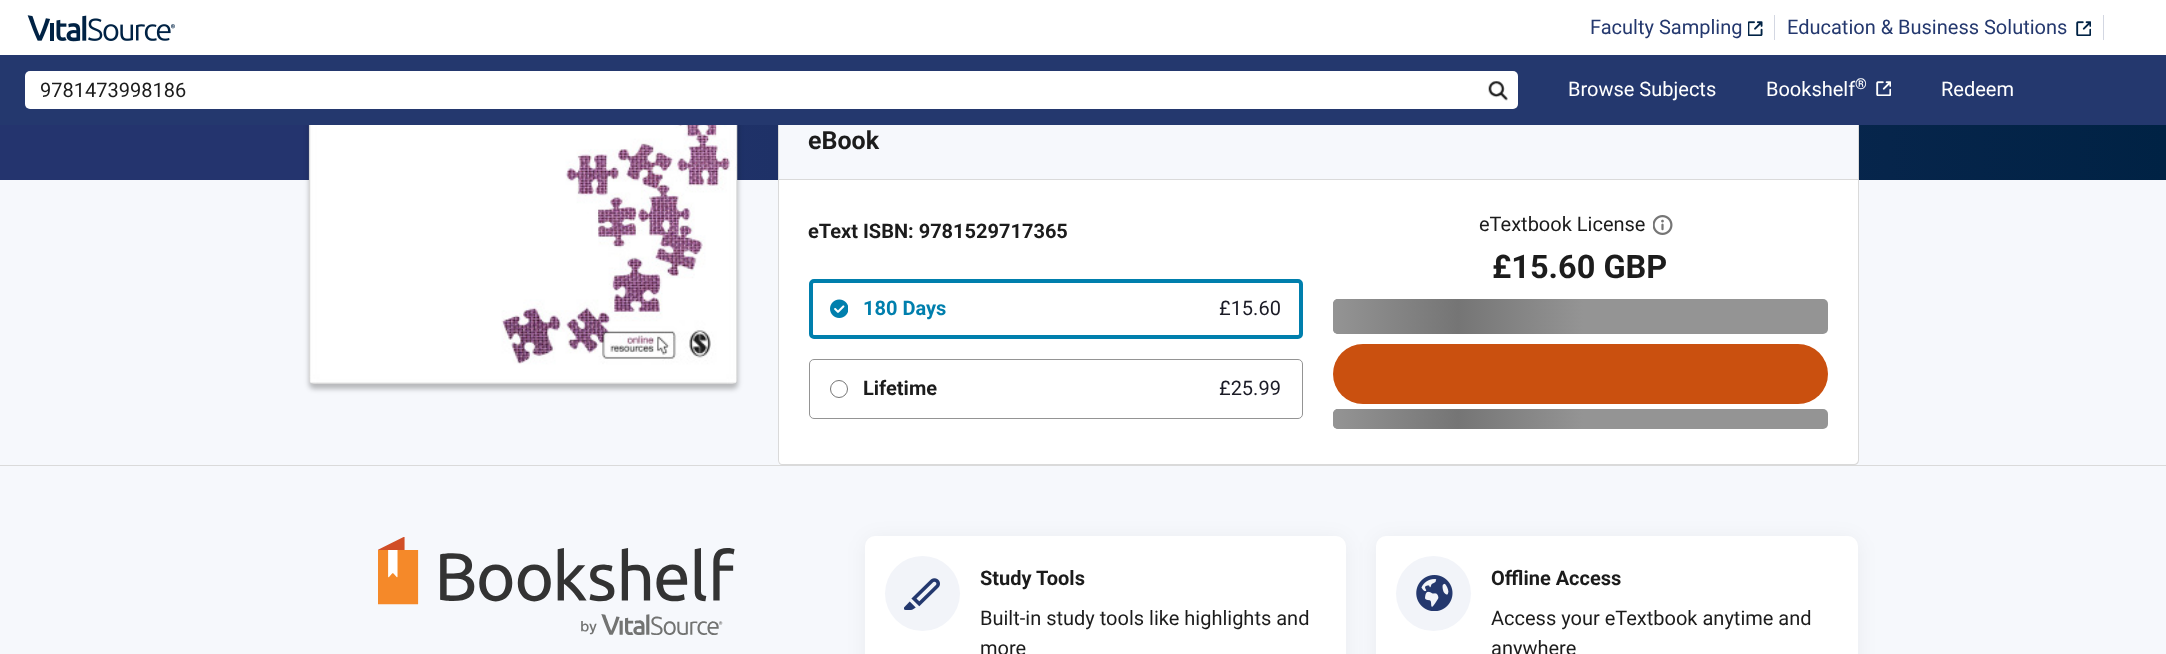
<!DOCTYPE html>
<meta charset="utf-8">
<style>body { margin: 0 } canvas { display: block }</style>
<canvas id="canvas" width="2166" height="654"></canvas>
<script type="module">
  const canvas = document.getElementById("canvas");
  const g = canvas.getContext("2d");
  g.miterLimit = 4;
  g.fontKerning = "normal";
  function drawText(s, x, y, [font, color]) {
    g.font = font;
    g.fillStyle = color;
    g.fillText(s, x, y);
  }
  function fillBox(x, y, w, h, color) {
    g.fillStyle = color;
    g.fillRect(x, y, w, h);
  }
  function fillRounded(x, y, w, h, r, color) {
    g.fillStyle = color;
    g.beginPath();
    g.roundRect(x, y, w, h, r);
    g.fill();
  }
  async function drawPicture(src, x, y, w, h) {
    const img = new Image();
    img.src = src;
    await img.decode();
    g.drawImage(img, x, y, w, h);
  }
  let gradient;

  const s1 = ["20px Roboto", "#24386E"];
  const s2 = ["20px Roboto", "#1C1C1C"];
  const s3 = ["20px Roboto", "#FFFFFF"];
  const s4 = ["15px Roboto", "#FFFFFF"];
  const s5 = ["bold 25px Roboto", "#1C1C1C"];
  const s6 = ["bold 20px Roboto", "#1C1C1C"];
  const s7 = ["bold 20px Roboto", "#007FAD"];
  const s8 = ["20px Roboto", "#1B1B26"];
  const s9 = ["bold 32.5px Roboto", "#1C1C1C"];

  fillBox(0, 0, 2166, 654, "#F6F8FC");
  gradient = g.createLinearGradient(2166, -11, 0, -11);
  gradient.addColorStop(0, "#002244");
  gradient.addColorStop(0.77, "#24346E");
  g.fillStyle = gradient;
  g.fillRect(0, 125, 2166, 55);
  g.fillStyle = "rgba(0, 0, 0, 0.25)";
  g.filter = "blur(2.5px)";
  g.beginPath();
  g.roundRect(309, -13, 429, 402, 5);
  g.fill();
  g.filter = "none";
  fillBox(0, 0, 2166, 55, "#FFFFFF");
  await drawPicture("pic1.png", 27, 15, 148, 27);
  drawText("Faculty Sampling", 1590, 34, s1);
  await drawPicture("pic2.png", 1748, 21, 15, 15);
  fillBox(1774, 15, 1, 25, "#D3D7E2");
  drawText("Education & Business Solutions", 1787, 34, s1);
  await drawPicture("pic3.png", 2076, 21, 15, 15);
  fillBox(2103, 15, 1, 25, "#D3D7E2");
  fillBox(779, 125, 1079, 54, "#F6F8FC");
  g.strokeStyle = "#DADADA";
  g.strokeRect(778.5, 99.5, 1080, 80);
  fillBox(0, 55, 2166, 70, "#24386E");
  fillRounded(25, 71, 1493, 38, 5, "#FFFFFF");
  drawText("9781473998186", 40, 97, s2);
  await drawPicture("pic4.png", 1488, 81, 20, 20);
  drawText("Browse Subjects", 1568, 96, s3);
  drawText("Bookshelf", 1766, 96, s3);
  drawText("®", 1855, 89, s4);
  await drawPicture("pic5.png", 1876, 81, 15, 15);
  drawText("Redeem", 1941, 96, s3);
  await drawPicture("pic6.png", 308, 125, 430, 259);
  drawText("eBook", 808, 149, s5);
  g.fillStyle = "#FFFFFF";
  g.beginPath();
  g.roundRect(778, 180, 1081, 285, [0, 0, 5, 5]);
  g.fill();
  g.fillStyle = "#DADADA";
  g.beginPath();
  g.moveTo(778, 180);
  g.lineTo(1859, 180);
  g.lineTo(1859, 460);
  g.bezierCurveTo(1859, 463, 1857, 465, 1854, 465);
  g.lineTo(782, 465);
  g.bezierCurveTo(780, 465, 778, 463, 778, 460);
  g.closePath();
  g.moveTo(779, 180);
  g.lineTo(1858, 180);
  g.lineTo(1858, 460);
  g.bezierCurveTo(1858, 462, 1856, 464, 1854, 464);
  g.lineTo(782, 464);
  g.bezierCurveTo(780, 464, 779, 462, 779, 460);
  g.closePath();
  g.fill("evenodd");
  drawText("eText ISBN: 9781529717365", 808, 238, s6);
  g.beginPath();
  g.roundRect(811, 281, 490, 56, 3);
  g.strokeStyle = "#007FAD";
  g.lineWidth = 4;
  g.stroke();
  await drawPicture("pic7.png", 830, 299, 18, 19);
  drawText("180 Days", 863, 315, s7);
  drawText("£15.60", 1219, 315, s8);
  g.beginPath();
  g.roundRect(809.5, 359.5, 493, 59, 4.5);
  g.strokeStyle = "#949494";
  g.lineWidth = 1;
  g.stroke();
  g.beginPath();
  g.arc(839, 389, 8.5, 0, Math.PI * 2);
  g.strokeStyle = "#767676";
  g.stroke();
  drawText("Lifetime", 863, 395, s6);
  drawText("£25.99", 1219, 395, s8);
  drawText("eTextbook License", 1479, 231, s2);
  await drawPicture("pic8.png", 1653, 215, 20, 20);
  drawText("£15.60 GBP", 1492, 278, s9);
  fillRounded(1333, 299, 495, 35, 5, "#949494");
  gradient = g.createLinearGradient(1333, 316, 1583, 316);
  gradient.addColorStop(0, "#949494");
  gradient.addColorStop(0.5, "#757575");
  gradient.addColorStop(1, "#949494");
  g.fillStyle = gradient;
  g.beginPath();
  g.roundRect(1333, 299, 250, 35, [5, 0, 0, 5]);
  g.fill();
  fillRounded(1333, 344, 495, 60, 30, "#CA500F");
  fillRounded(1333, 409, 495, 20, 5, "#949494");
  gradient = g.createLinearGradient(1333, 419, 1583, 419);
  gradient.addColorStop(0, "#949494");
  gradient.addColorStop(0.5, "#757575");
  gradient.addColorStop(1, "#949494");
  g.fillStyle = gradient;
  g.beginPath();
  g.roundRect(1333, 409, 250, 20, [5, 0, 0, 5]);
  g.fill();
  fillBox(0, 465, 2166, 1, "#DADADA");
  await drawPicture("pic9.png", 378, 537, 357, 98);
  g.fillStyle = "rgba(0, 0, 0, 0.05)";
  g.filter = "blur(10px)";
  g.beginPath();
  g.roundRect(865, 538, 481, 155, 10);
  g.fill();
  g.filter = "none";
  fillRounded(865, 536, 481, 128, 10, "#FFFFFF");
  g.fillStyle = "#F2F4F9";
  g.beginPath();
  g.arc(922.5, 593.5, 37.5, 0, Math.PI * 2);
  g.fill();
  await drawPicture("pic10.png", 904, 578, 36, 32);
  drawText("Study Tools", 980, 585, s6);
  drawText("Built-in study tools like highlights and", 980, 625, s2);
  drawText("more", 980, 655, s2);
  g.fillStyle = "rgba(0, 0, 0, 0.05)";
  g.filter = "blur(10px)";
  g.beginPath();
  g.roundRect(1376, 538, 482, 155, 10);
  g.fill();
  g.filter = "none";
  fillRounded(1376, 536, 482, 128, 10, "#FFFFFF");
  g.fillStyle = "#F2F4F9";
  g.beginPath();
  g.arc(1433.5, 593.5, 37.5, 0, Math.PI * 2);
  g.fill();
  await drawPicture("pic11.png", 1416, 575, 37, 36);
  drawText("Offline Access", 1491, 585, s6);
  drawText("Access your eTextbook anytime and", 1491, 625, s2);
  drawText("anywhere", 1491, 655, s2);
</script>
